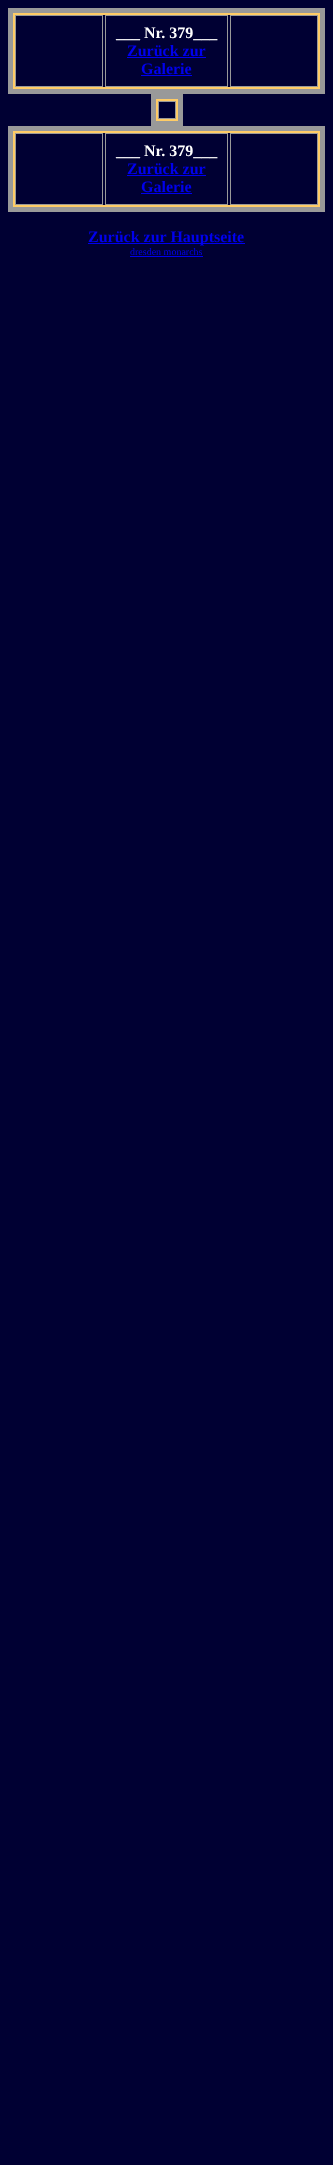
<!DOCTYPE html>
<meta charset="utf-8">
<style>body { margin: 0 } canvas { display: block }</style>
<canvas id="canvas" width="333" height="2165"></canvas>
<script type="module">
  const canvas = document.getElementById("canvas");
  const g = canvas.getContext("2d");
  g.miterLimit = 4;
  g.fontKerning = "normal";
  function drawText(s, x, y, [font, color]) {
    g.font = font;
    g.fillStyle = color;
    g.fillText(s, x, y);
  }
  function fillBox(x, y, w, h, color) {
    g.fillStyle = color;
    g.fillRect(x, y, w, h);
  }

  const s1 = ["bold 16px Liberation Serif", "#FFFFFF"];
  const s2 = ["bold 16px Liberation Serif", "#0000EE"];
  const s3 = ["10px Liberation Serif", "#0000EE"];

  fillBox(0, 0, 333, 2165, "#000033");
  g.fillStyle = "#FFCC66";
  g.beginPath();
  g.rect(10.5, 10.5, 312, 81);
  g.fill();
  g.strokeStyle = "#999999";
  g.lineWidth = 5;
  g.stroke();
  fillBox(16, 15, 301, 72, "#000033");
  g.lineWidth = 1;
  g.strokeRect(15.5, 15.5, 87, 71);
  g.strokeRect(105.5, 15.5, 122, 71);
  drawText("___ Nr. 379___", 116, 38, s1);
  drawText("Zurück zur", 127, 56, s2);
  fillBox(127, 57, 79, 1, "#0000EE");
  drawText("Galerie", 141, 74, s2);
  fillBox(141, 75, 51, 1, "#0000EE");
  g.strokeRect(230.5, 15.5, 87, 71);
  g.fillStyle = "#FFCC66";
  g.beginPath();
  g.rect(153.5, 96.5, 27, 27);
  g.fill();
  g.lineWidth = 5;
  g.stroke();
  g.fillStyle = "#000033";
  g.beginPath();
  g.rect(158.5, 101.5, 17, 17);
  g.fill();
  g.lineWidth = 1;
  g.stroke();
  g.fillStyle = "#FFCC66";
  g.beginPath();
  g.rect(10.5, 128.5, 312, 81);
  g.fill();
  g.lineWidth = 5;
  g.stroke();
  fillBox(16, 133, 301, 72, "#000033");
  g.lineWidth = 1;
  g.strokeRect(15.5, 133.5, 87, 71);
  g.strokeRect(105.5, 133.5, 122, 71);
  drawText("___ Nr. 379___", 116, 156, s1);
  drawText("Zurück zur", 127, 174, s2);
  fillBox(127, 175, 79, 1, "#0000EE");
  drawText("Galerie", 141, 192, s2);
  fillBox(141, 193, 51, 1, "#0000EE");
  g.strokeRect(230.5, 133.5, 87, 71);
  fillBox(88, 243, 157, 1, "#0000EE");
  drawText("Zurück zur Hauptseite", 88, 242, s2);
  drawText("dresden monarchs", 130, 255, s3);
  fillBox(130, 256, 73, 1, "#0000EE");
</script>
